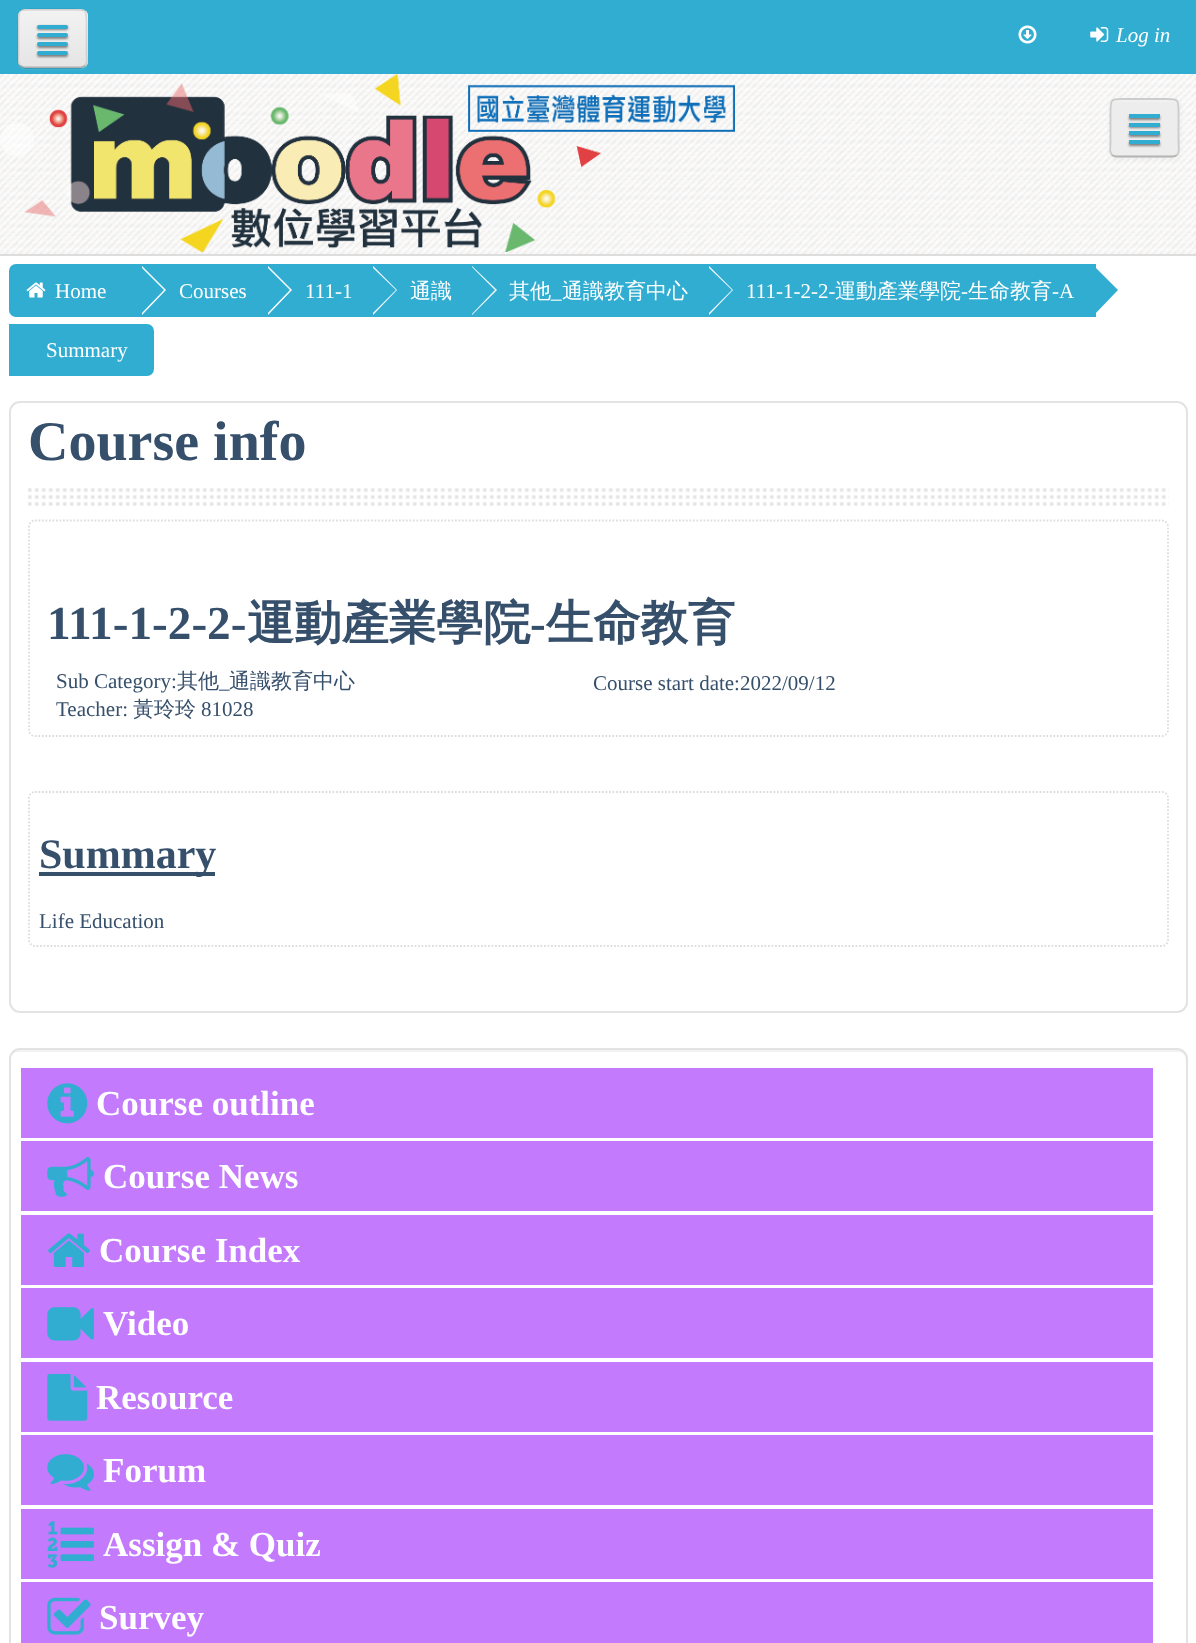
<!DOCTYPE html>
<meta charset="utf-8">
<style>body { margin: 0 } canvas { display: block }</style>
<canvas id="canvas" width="1196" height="1643"></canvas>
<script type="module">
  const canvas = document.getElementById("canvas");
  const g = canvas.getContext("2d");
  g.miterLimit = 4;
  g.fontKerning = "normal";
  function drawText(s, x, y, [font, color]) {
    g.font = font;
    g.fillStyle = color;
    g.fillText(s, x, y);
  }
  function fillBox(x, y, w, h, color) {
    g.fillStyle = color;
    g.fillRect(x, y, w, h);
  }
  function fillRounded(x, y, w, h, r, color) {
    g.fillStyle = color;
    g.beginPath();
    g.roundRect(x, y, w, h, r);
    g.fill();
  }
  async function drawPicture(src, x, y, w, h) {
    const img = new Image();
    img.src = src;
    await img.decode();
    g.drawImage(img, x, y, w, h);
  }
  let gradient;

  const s1 = ["italic 21px Liberation Serif", "#FFFFFF"];
  const s2 = ["21px Liberation Serif", "#FFFFFF"];
  const s3 = ["500 21px WenQuanYi Zen Hei", "#FFFFFF"];
  const s4 = ["bold 56px Liberation Serif", "#364F6B"];
  const s5 = ["bold 47.25px Liberation Serif", "#364F6B"];
  const s6 = ["bold 47.25px WenQuanYi Zen Hei", "#364F6B"];
  const s7 = ["21px Liberation Serif", "#364F6B"];
  const s8 = ["500 21px WenQuanYi Zen Hei", "#364F6B"];
  const s9 = ["bold 42px Liberation Serif", "#364F6B"];
  const s10 = ["bold 35px Liberation Serif", "#FFFFFF"];

  fillBox(0, 0, 1196, 1643, "#FFFFFF");
  fillBox(0, 0, 1196, 74, "#30ADD1");
  g.fillStyle = "#40B3D4";
  g.beginPath();
  g.moveTo(18, 64);
  g.bezierCurveTo(19, 67, 21, 70, 25, 70);
  g.lineTo(81, 70);
  g.bezierCurveTo(85, 70, 88, 67, 88, 63);
  g.lineTo(88, 18);
  g.lineTo(87, 15);
  g.lineTo(88, 54);
  g.bezierCurveTo(88, 69, 86, 68, 71, 68);
  g.lineTo(34, 68);
  g.bezierCurveTo(29, 68, 21, 70, 18, 64);
  g.closePath();
  g.fill();
  fillRounded(18, 9, 70, 59, 7, "#EDEDED");
  g.save();
  g.beginPath();
  g.roundRect(18, 9, 70, 59, 7);
  g.clip();
  gradient = g.createLinearGradient(52, 10, 53, 67);
  gradient.addColorStop(0, "#F2F2F2");
  gradient.addColorStop(1, "#E5E5E5");
  g.fillStyle = gradient;
  g.fillRect(18, 11, 70, 56);
  g.restore();
  g.beginPath();
  g.moveTo(85, 65.5);
  g.bezierCurveTo(83.5, 66.5, 82, 67.5, 80.5, 67.5);
  g.lineTo(24.5, 67.5);
  g.bezierCurveTo(23, 67.5, 21.5, 66.5, 20, 65.5);
  g.strokeStyle = "rgba(0, 0, 0, 0.25)";
  g.lineWidth = 1.8;
  g.stroke();
  g.beginPath();
  g.moveTo(20, 65.5);
  g.bezierCurveTo(17, 62.5, 18.5, 57, 18.5, 53.5);
  g.lineTo(18.5, 23.5);
  g.bezierCurveTo(18.5, 8.5, 19, 9.5, 34, 9.5);
  g.lineTo(71, 9.5);
  g.bezierCurveTo(86, 9.5, 86.5, 8.5, 86.5, 23.5);
  g.lineTo(86.5, 53.5);
  g.bezierCurveTo(86.5, 57, 88, 62.5, 85, 65.5);
  g.strokeStyle = "rgba(0, 0, 0, 0.1)";
  g.stroke();
  g.fillStyle = "rgba(0, 0, 0, 0.45)";
  g.filter = "blur(1px)";
  g.beginPath();
  g.roundRect(37, 26, 31, 4, 2);
  g.fill();
  g.filter = "none";
  fillRounded(37, 25, 31, 4, 2, "#30ADD1");
  g.fillStyle = "rgba(0, 0, 0, 0.45)";
  g.filter = "blur(1px)";
  g.beginPath();
  g.roundRect(37, 35, 31, 4, 2);
  g.fill();
  g.filter = "none";
  fillRounded(37, 33, 31, 4, 2, "#30ADD1");
  g.fillStyle = "rgba(0, 0, 0, 0.45)";
  g.filter = "blur(1px)";
  g.beginPath();
  g.roundRect(37, 44, 31, 4, 2);
  g.fill();
  g.filter = "none";
  fillRounded(37, 42, 31, 4, 2, "#30ADD1");
  g.fillStyle = "rgba(0, 0, 0, 0.45)";
  g.filter = "blur(1px)";
  g.beginPath();
  g.roundRect(37, 53, 31, 4, 2);
  g.fill();
  g.filter = "none";
  fillRounded(37, 51, 31, 4, 2, "#30ADD1");
  await drawPicture("pic1.png", 1018, 25, 19, 19);
  await drawPicture("pic2.png", 1090, 27, 19, 15);
  drawText("Log in", 1116, 42, s1);
  await drawPicture("pic3.png", 0, 74, 1196, 180);
  fillBox(0, 254, 1196, 2, "#DDDDDD");
  await drawPicture("pic4.png", 0, 74, 735, 178);
  g.fillStyle = "rgba(0, 0, 0, 0.05)";
  g.filter = "blur(2px)";
  g.beginPath();
  g.roundRect(1110, 100, 70, 59, 7);
  g.fill();
  g.filter = "none";
  fillRounded(1110, 98, 70, 60, 7, "#EDEDED");
  g.fillStyle = "#F1F1F1";
  g.beginPath();
  g.moveTo(1116, 102);
  g.lineTo(1172, 102);
  g.bezierCurveTo(1175, 102, 1178, 104, 1178, 107);
  g.bezierCurveTo(1178, 98, 1171, 100, 1164, 100);
  g.lineTo(1126, 100);
  g.bezierCurveTo(1118, 100, 1111, 98, 1111, 107);
  g.bezierCurveTo(1111, 104, 1114, 102, 1116, 102);
  g.closePath();
  g.fill();
  g.beginPath();
  g.moveTo(1177, 155);
  g.bezierCurveTo(1175.5, 156, 1174, 156.5, 1172.5, 156.5);
  g.lineTo(1116.5, 156.5);
  g.bezierCurveTo(1115, 156.5, 1113.5, 156, 1112, 155);
  g.strokeStyle = "#B3B3B3";
  g.stroke();
  g.beginPath();
  g.moveTo(1112, 155);
  g.bezierCurveTo(1109, 152, 1110.5, 146.5, 1110.5, 143);
  g.lineTo(1110.5, 112.5);
  g.bezierCurveTo(1110.5, 98, 1111, 99, 1126, 99);
  g.lineTo(1163, 99);
  g.bezierCurveTo(1178, 99, 1178.5, 98, 1178.5, 112.5);
  g.lineTo(1178.5, 143);
  g.bezierCurveTo(1178.5, 146.5, 1180, 152, 1177, 155);
  g.strokeStyle = "#CCCCCC";
  g.stroke();
  g.fillStyle = "rgba(0, 0, 0, 0.45)";
  g.filter = "blur(1px)";
  g.beginPath();
  g.rect(1129, 116, 31, 4);
  g.fill();
  g.filter = "none";
  fillBox(1129, 114, 31, 4, "#30ADD1");
  g.fillStyle = "rgba(0, 0, 0, 0.45)";
  g.filter = "blur(1px)";
  g.beginPath();
  g.rect(1129, 124, 31, 4);
  g.fill();
  g.filter = "none";
  fillBox(1129, 123, 31, 4, "#30ADD1");
  g.fillStyle = "rgba(0, 0, 0, 0.45)";
  g.filter = "blur(1px)";
  g.beginPath();
  g.rect(1129, 133, 31, 4);
  g.fill();
  g.filter = "none";
  fillBox(1129, 131, 31, 4, "#30ADD1");
  g.fillStyle = "rgba(0, 0, 0, 0.45)";
  g.filter = "blur(1px)";
  g.beginPath();
  g.rect(1129, 142, 31, 4);
  g.fill();
  g.filter = "none";
  fillBox(1129, 140, 31, 4, "#30ADD1");
  g.beginPath();
  g.roundRect(10, 265, 131, 51, [6, 0, 0, 6]);
  g.fill();
  g.strokeStyle = "#30ADD1";
  g.lineWidth = 2;
  g.stroke();
  fillBox(142, 264, 954, 53, "#30ADD1");
  g.fillStyle = "#FFFFFF";
  g.beginPath();
  g.moveTo(142, 315);
  g.lineTo(142, 266);
  g.lineTo(166, 290);
  g.closePath();
  g.fill();
  g.fillStyle = "#30ADD1";
  g.beginPath();
  g.moveTo(140, 315);
  g.lineTo(140, 266);
  g.lineTo(164, 290);
  g.closePath();
  g.fill();
  await drawPicture("pic5.png", 26, 282, 20, 16);
  drawText("Home", 55, 298, s2);
  g.beginPath();
  g.moveTo(268, 315);
  g.lineTo(268, 266);
  g.lineTo(292, 290);
  g.closePath();
  g.fill();
  g.fillStyle = "#30ADD1";
  g.beginPath();
  g.moveTo(266, 315);
  g.lineTo(266, 266);
  g.lineTo(290, 290);
  g.closePath();
  g.fill();
  drawText("Courses", 179, 298, s2);
  g.beginPath();
  g.moveTo(373, 315);
  g.lineTo(373, 266);
  g.lineTo(397, 290);
  g.closePath();
  g.fill();
  g.fillStyle = "#30ADD1";
  g.beginPath();
  g.moveTo(371, 315);
  g.lineTo(371, 266);
  g.lineTo(396, 290);
  g.closePath();
  g.fill();
  drawText("111-1", 305, 298, s2);
  g.beginPath();
  g.moveTo(472, 315);
  g.lineTo(472, 266);
  g.lineTo(497, 290);
  g.closePath();
  g.fill();
  g.fillStyle = "#30ADD1";
  g.beginPath();
  g.moveTo(471, 315);
  g.lineTo(471, 266);
  g.lineTo(495, 290);
  g.closePath();
  g.fill();
  drawText("通識", 410, 298, s3);
  g.beginPath();
  g.moveTo(709, 315);
  g.lineTo(709, 266);
  g.lineTo(733, 290);
  g.closePath();
  g.fill();
  g.fillStyle = "#30ADD1";
  g.beginPath();
  g.moveTo(707, 315);
  g.lineTo(707, 266);
  g.lineTo(732, 290);
  g.closePath();
  g.fill();
  drawText("其他", 509, 298, s3);
  drawText("_", 551, 298, s2);
  drawText("通識教育中心", 562, 298, s3);
  drawText("111-1-2-2-", 746, 298, s2);
  drawText("運動產業學院", 835, 298, s3);
  drawText("-", 961, 298, s2);
  drawText("生命教育", 968, 298, s3);
  drawText("-A", 1052, 298, s2);
  g.fillStyle = "#30ADD1";
  g.beginPath();
  g.moveTo(1094, 315);
  g.lineTo(1094, 266);
  g.lineTo(1118, 290);
  g.closePath();
  g.fill();
  g.beginPath();
  g.roundRect(10, 325, 143, 50, [0, 6, 6, 0]);
  g.fill();
  g.stroke();
  drawText("Summary", 46, 357, s2);
  g.beginPath();
  g.roundRect(10, 402, 1177, 610, 10);
  g.strokeStyle = "#E3E3E3";
  g.stroke();
  drawText("Course info", 28, 460, s4);
  await drawPicture("pic6.png", 28, 488, 1141, 18);
  g.beginPath();
  g.moveTo(35, 520.5);
  g.lineTo(1162, 520.5);
  g.bezierCurveTo(1165.5, 520.5, 1168, 523.5, 1168, 527);
  g.lineTo(1168, 730);
  g.bezierCurveTo(1168, 733, 1165.5, 736, 1162, 736);
  g.lineTo(35, 736);
  g.bezierCurveTo(31.5, 736, 29, 733, 29, 730);
  g.lineTo(29, 527);
  g.bezierCurveTo(29, 523.5, 31.5, 520.5, 35, 520.5);
  g.closePath();
  g.strokeStyle = "#DDDDDD";
  g.lineWidth = 1.8;
  g.setLineDash([1.75, 1.75]);
  g.stroke();
  drawText("111-1-2-2-", 47, 639, s5);
  drawText("運動產業學院", 247, 639, s6);
  drawText("-", 530, 639, s5);
  drawText("生命教育", 546, 639, s6);
  drawText("Sub Category:", 56, 688, s7);
  drawText("其他", 177, 688, s8);
  drawText("_", 219, 688, s7);
  drawText("通識教育中心", 229, 688, s8);
  drawText("Teacher:", 56, 716, s7);
  drawText("黃玲玲", 133, 716, s8);
  drawText("81028", 201, 716, s7);
  drawText("Course start date:2022/09/12", 593, 690, s7);
  g.beginPath();
  g.moveTo(35, 792);
  g.lineTo(1162, 792);
  g.bezierCurveTo(1165.5, 792, 1168, 794.5, 1168, 798);
  g.lineTo(1168, 940);
  g.bezierCurveTo(1168, 943, 1165.5, 946, 1162, 946);
  g.lineTo(35, 946);
  g.bezierCurveTo(31.5, 946, 29, 943, 29, 940);
  g.lineTo(29, 798);
  g.bezierCurveTo(29, 794.5, 31.5, 792, 35, 792);
  g.closePath();
  g.stroke();
  fillBox(39, 872, 176, 4, "#364F6B");
  drawText("Summary", 39, 868, s9);
  drawText("Life Education", 39, 928, s7);
  g.fillStyle = "#F2F2F2";
  g.beginPath();
  g.moveTo(19, 1052);
  g.lineTo(1178, 1052);
  g.bezierCurveTo(1183, 1052, 1186, 1056, 1186, 1060);
  g.lineTo(1186, 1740);
  g.lineTo(1185, 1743);
  g.bezierCurveTo(1186, 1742, 1187, 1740, 1187, 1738);
  g.lineTo(1187, 1059);
  g.bezierCurveTo(1187, 1054, 1183, 1050, 1178, 1050);
  g.lineTo(20, 1050);
  g.bezierCurveTo(16, 1050, 13, 1052, 12, 1055);
  g.bezierCurveTo(13, 1053, 16, 1052, 19, 1052);
  g.closePath();
  g.fill();
  g.beginPath();
  g.roundRect(10, 1049, 1177, 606, 10);
  g.strokeStyle = "#E3E3E3";
  g.lineWidth = 2;
  g.setLineDash([]);
  g.stroke();
  fillBox(21, 1068, 1132, 70, "#C37AFC");
  await drawPicture("pic7.png", 47, 1083, 41, 41);
  drawText("Course outline", 96, 1115, s10);
  fillBox(21, 1141, 1132, 70, "#C37AFC");
  await drawPicture("pic8.png", 47, 1156, 47, 41);
  drawText("Course News", 103, 1188, s10);
  fillBox(21, 1215, 1132, 70, "#C37AFC");
  await drawPicture("pic9.png", 48, 1233, 42, 34);
  drawText("Course Index", 99, 1262, s10);
  fillBox(21, 1288, 1132, 70, "#C37AFC");
  await drawPicture("pic10.png", 47, 1307, 47, 34);
  drawText("Video", 103, 1335, s10);
  fillBox(21, 1362, 1132, 70, "#C37AFC");
  await drawPicture("pic11.png", 47, 1374, 41, 47);
  drawText("Resource", 96, 1409, s10);
  fillBox(21, 1435, 1132, 70, "#C37AFC");
  await drawPicture("pic12.png", 47, 1454, 47, 37);
  drawText("Forum", 103, 1482, s10);
  fillBox(21, 1509, 1132, 70, "#C37AFC");
  await drawPicture("pic13.png", 47, 1521, 47, 47);
  drawText("Assign & Quiz", 103, 1556, s10);
  fillBox(21, 1582, 1132, 61, "#C37AFC");
  await drawPicture("pic14.png", 47, 1597, 44, 38);
  drawText("Survey", 99, 1629, s10);
</script>
